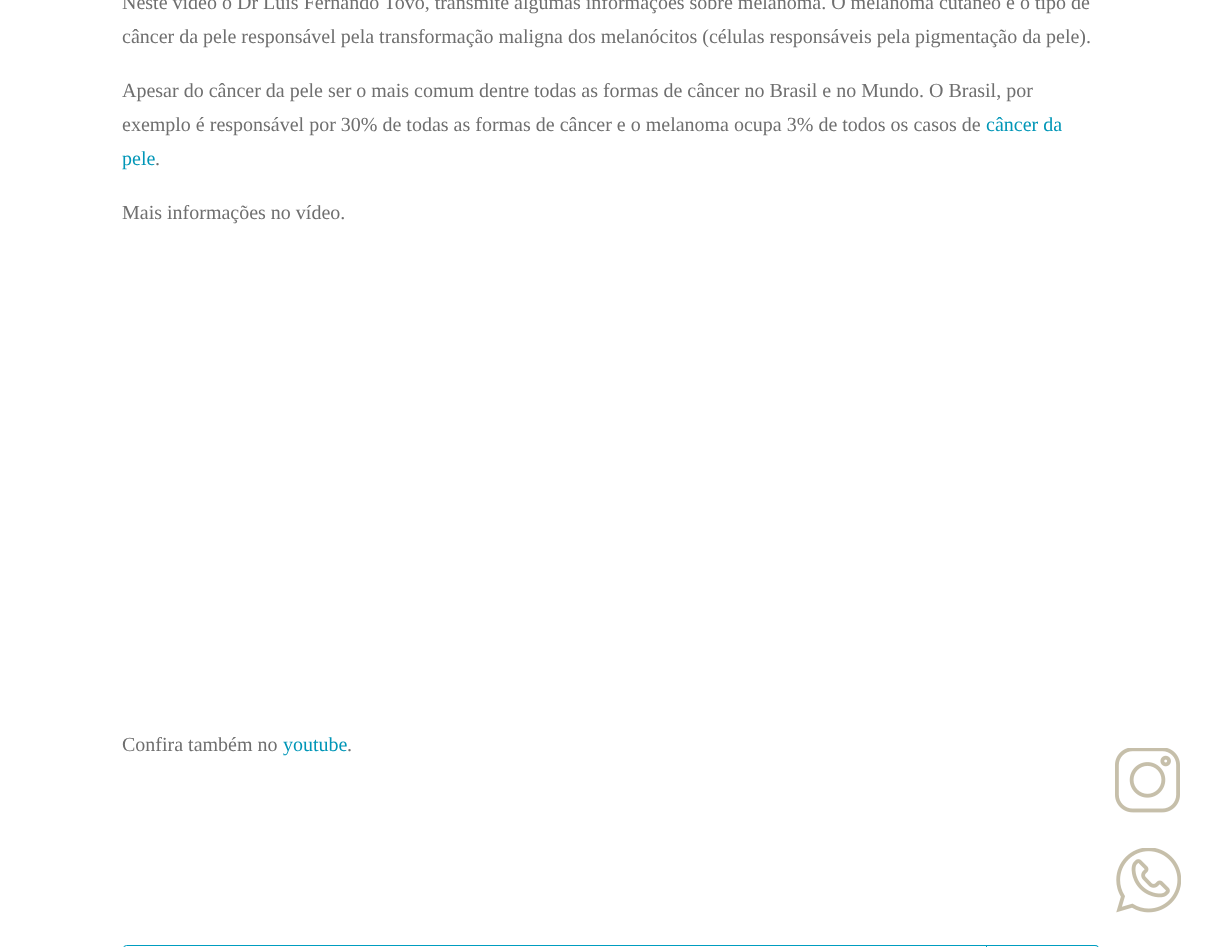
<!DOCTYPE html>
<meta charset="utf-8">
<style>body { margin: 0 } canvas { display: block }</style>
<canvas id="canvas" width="1221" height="947"></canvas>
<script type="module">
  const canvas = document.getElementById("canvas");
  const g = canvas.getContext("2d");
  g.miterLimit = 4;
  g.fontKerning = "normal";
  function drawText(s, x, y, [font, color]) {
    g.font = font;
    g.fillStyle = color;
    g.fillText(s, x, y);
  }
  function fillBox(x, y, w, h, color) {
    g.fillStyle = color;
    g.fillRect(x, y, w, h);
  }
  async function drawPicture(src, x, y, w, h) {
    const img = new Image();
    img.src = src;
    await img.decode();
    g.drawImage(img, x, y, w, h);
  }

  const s1 = ["20px Liberation Serif", "#6F6F6F"];
  const s2 = ["20px Liberation Serif", "#0096B7"];

  fillBox(0, 0, 1221, 947, "#FFFFFF");
  drawText("Neste vídeo o Dr Luis Fernando Tovo, transmite algumas informações sobre melanoma. O melanoma cutâneo é o tipo de", 122, 9, s1);
  drawText("câncer da pele responsável pela transformação maligna dos melanócitos (células responsáveis pela pigmentação da pele).", 122, 43, s1);
  drawText("Apesar do câncer da pele ser o mais comum dentre todas as formas de câncer no Brasil e no Mundo. O Brasil, por", 122, 97, s1);
  drawText("exemplo é responsável por 30% de todas as formas de câncer e o melanoma ocupa 3% de todos os casos de", 122, 131, s1);
  drawText("câncer da", 986, 131, s2);
  drawText("pele", 122, 165, s2);
  drawText(".", 155, 165, s1);
  drawText("Mais informações no vídeo.", 122, 219, s1);
  drawText("Confira também no", 122, 751, s1);
  drawText("youtube", 283, 751, s2);
  drawText(".", 347, 751, s1);
  g.beginPath();
  g.roundRect(123.5, 945.5, 975, 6, 3.5);
  g.strokeStyle = "#009DC0";
  g.stroke();
  g.fillStyle = "#FFFFFF";
  g.beginPath();
  g.moveTo(986.5, 945.5);
  g.lineTo(1095, 945.5);
  g.bezierCurveTo(1097, 945.5, 1098.5, 947, 1098.5, 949);
  g.lineTo(1098.5, 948);
  g.bezierCurveTo(1098.5, 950, 1097, 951.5, 1095, 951.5);
  g.lineTo(986.5, 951.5);
  g.closePath();
  g.fill();
  g.stroke();
  await drawPicture("pic1.png", 1115, 748, 65, 65);
  await drawPicture("pic2.png", 1116, 848, 65, 65);
</script>
